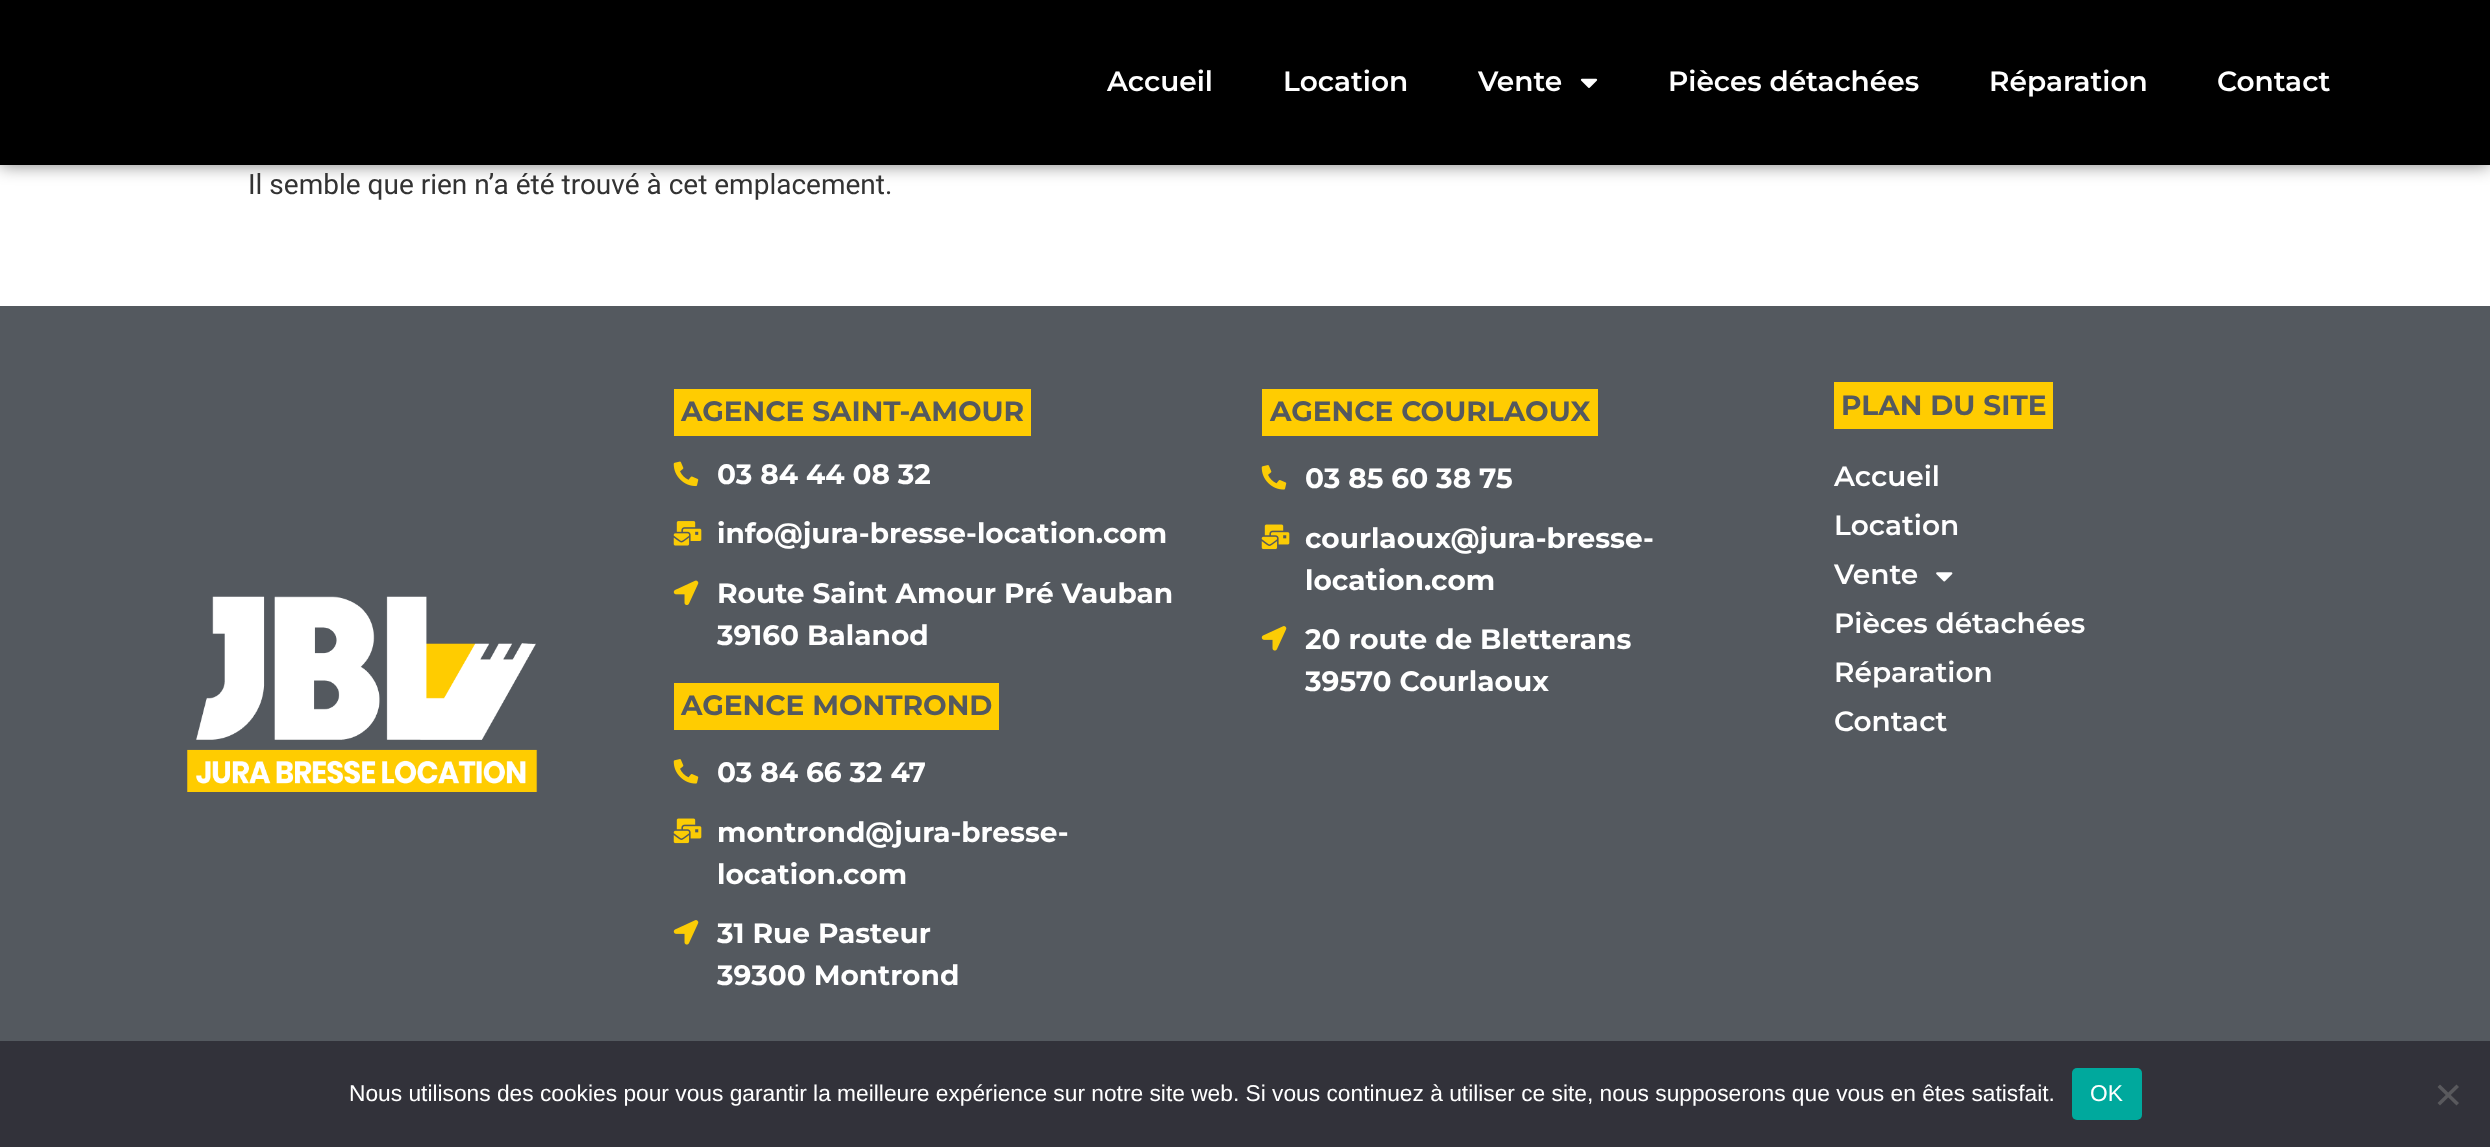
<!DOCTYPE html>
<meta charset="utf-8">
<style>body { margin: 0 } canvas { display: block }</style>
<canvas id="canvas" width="2490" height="1147"></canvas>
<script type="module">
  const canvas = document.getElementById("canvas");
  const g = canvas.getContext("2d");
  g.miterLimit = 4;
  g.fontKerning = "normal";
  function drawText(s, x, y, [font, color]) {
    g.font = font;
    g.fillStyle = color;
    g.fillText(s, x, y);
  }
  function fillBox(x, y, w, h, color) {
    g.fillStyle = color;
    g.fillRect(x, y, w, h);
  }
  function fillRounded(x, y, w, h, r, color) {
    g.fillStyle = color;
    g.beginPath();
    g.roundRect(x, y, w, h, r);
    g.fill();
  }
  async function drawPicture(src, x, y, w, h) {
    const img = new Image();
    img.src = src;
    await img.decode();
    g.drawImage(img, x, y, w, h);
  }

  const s1 = ["600 28px Montserrat", "#FFFFFF"];
  const s2 = ["28px Roboto", "#333333"];
  const s3 = ["bold 28px Montserrat", "#54595F"];
  const s4 = ["bold 28px Montserrat", "#FFFFFF"];
  const s5 = ["22.75px Liberation Sans", "#FFFFFF"];

  fillBox(0, 0, 2490, 1147, "#FFFFFF");
  g.fillStyle = "rgba(0, 0, 0, 0.5)";
  g.filter = "blur(9px)";
  g.beginPath();
  g.rect(0, 0, 2490, 165);
  g.fill();
  g.filter = "none";
  fillBox(0, 0, 2490, 165, "#000000");
  drawText("Accueil", 1107, 91, s1);
  drawText("Location", 1283, 91, s1);
  drawText("Vente", 1478, 91, s1);
  await drawPicture("pic1.png", 1580, 78, 18, 10);
  drawText("Pièces détachées", 1668, 91, s1);
  drawText("Réparation", 1989, 91, s1);
  drawText("Contact", 2217, 91, s1);
  drawText("Il semble que rien n’a été trouvé à cet emplacement.", 248, 194, s2);
  fillBox(0, 306, 2490, 735, "#54595F");
  await drawPicture("pic2.png", 187, 596, 351, 196);
  fillBox(674, 389, 357, 47, "#FFCC01");
  drawText("AGENCE SAINT-AMOUR", 681, 421, s3);
  await drawPicture("pic3.png", 673, 461, 26, 26);
  drawText("03 84 44 08 32", 717, 484, s4);
  await drawPicture("pic4.png", 673, 521, 29, 25);
  drawText("info@jura-bresse-location.com", 717, 543, s4);
  await drawPicture("pic5.png", 673, 580, 26, 25);
  drawText("Route Saint Amour Pré Vauban", 717, 603, s4);
  drawText("39160 Balanod", 717, 645, s4);
  fillBox(674, 683, 325, 47, "#FFCC01");
  drawText("AGENCE MONTROND", 681, 715, s3);
  await drawPicture("pic6.png", 673, 759, 26, 25);
  drawText("03 84 66 32 47", 717, 782, s4);
  await drawPicture("pic7.png", 673, 818, 29, 26);
  drawText("montrond@jura-bresse-", 717, 842, s4);
  drawText("location.com", 717, 884, s4);
  await drawPicture("pic8.png", 673, 920, 26, 25);
  drawText("31 Rue Pasteur", 717, 943, s4);
  drawText("39300 Montrond", 717, 985, s4);
  fillBox(1262, 389, 336, 47, "#FFCC01");
  drawText("AGENCE COURLAOUX", 1270, 421, s3);
  await drawPicture("pic6.png", 1261, 465, 26, 25);
  drawText("03 85 60 38 75", 1305, 488, s4);
  await drawPicture("pic7.png", 1261, 524, 29, 26);
  drawText("courlaoux@jura-bresse-", 1305, 548, s4);
  drawText("location.com", 1305, 590, s4);
  await drawPicture("pic8.png", 1261, 626, 26, 25);
  drawText("20 route de Bletterans", 1305, 649, s4);
  drawText("39570 Courlaoux", 1305, 691, s4);
  fillBox(1834, 382, 219, 47, "#FFCC01");
  drawText("PLAN DU SITE", 1841, 415, s3);
  drawText("Accueil", 1834, 486, s1);
  drawText("Location", 1834, 535, s1);
  drawText("Vente", 1834, 584, s1);
  await drawPicture("pic9.png", 1936, 572, 17, 10);
  drawText("Pièces détachées", 1834, 633, s1);
  drawText("Réparation", 1834, 682, s1);
  drawText("Contact", 1834, 731, s1);
  fillBox(0, 1041, 2490, 106, "#32323A");
  drawText("Nous utilisons des cookies pour vous garantir la meilleure expérience sur notre site web. Si vous continuez à utiliser ce site, nous supposerons que vous en êtes satisfait.", 349, 1101, s5);
  fillRounded(2072, 1068, 70, 52, 5, "#00A99D");
  drawText("OK", 2090, 1101, s5);
  g.fillStyle = "#59595D";
  g.beginPath();
  g.moveTo(2456.5, 1084.5);
  g.lineTo(2459, 1087);
  g.lineTo(2440, 1105.5);
  g.lineTo(2437.5, 1103);
  g.closePath();
  g.fill();
  g.beginPath();
  g.moveTo(2437.5, 1087);
  g.lineTo(2440, 1084.5);
  g.lineTo(2459, 1103);
  g.lineTo(2456.5, 1105.5);
  g.closePath();
  g.fill();
</script>
